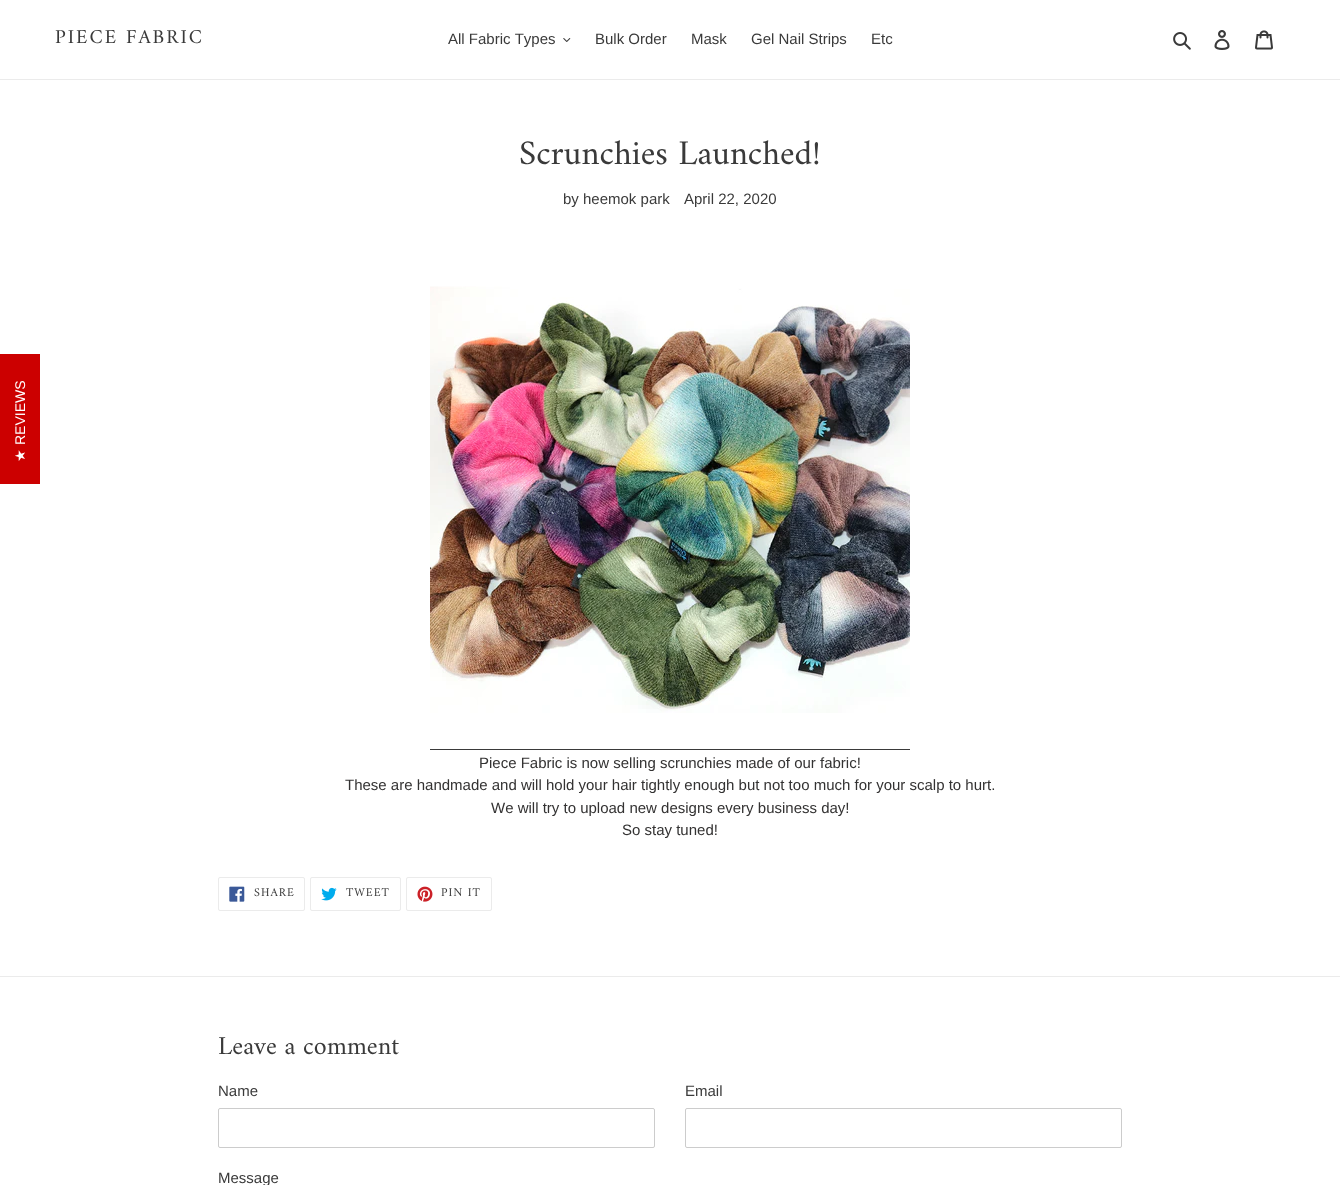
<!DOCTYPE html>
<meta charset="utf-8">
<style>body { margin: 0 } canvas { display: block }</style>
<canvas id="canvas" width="1340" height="1185"></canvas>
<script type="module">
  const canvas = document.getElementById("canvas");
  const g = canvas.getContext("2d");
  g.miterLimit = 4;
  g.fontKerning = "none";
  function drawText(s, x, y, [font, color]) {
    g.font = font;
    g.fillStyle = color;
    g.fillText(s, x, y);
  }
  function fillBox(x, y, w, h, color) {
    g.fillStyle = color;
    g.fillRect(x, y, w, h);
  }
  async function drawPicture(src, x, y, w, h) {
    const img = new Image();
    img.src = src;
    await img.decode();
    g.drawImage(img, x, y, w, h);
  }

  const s1 = ["20px Amiri", "#3A3A3A"];
  const s2 = ["15px Liberation Sans", "#3A3A3A"];
  const s3 = ["35px Amiri", "#3A3A3A"];
  const s4 = ["15px Liberation Sans", "#333232"];
  const s5 = ["12px Amiri", "#3A3A3A"];
  const s6 = ["26px Amiri", "#3A3A3A"];

  fillBox(0, 0, 1340, 1185, "#FFFFFF");
  fillBox(0, 79, 1340, 1, "#EBEBEB");
  g.letterSpacing = "2px";
  drawText("PIECE FABRIC", 55, 43, s1);
  g.letterSpacing = "0px";
  drawText("All Fabric Types", 448, 44, s2);
  await drawPicture("pic1.png", 563, 38, 8, 4);
  drawText("Bulk Order", 595, 44, s2);
  drawText("Mask", 691, 44, s2);
  drawText("Gel Nail Strips", 751, 44, s2);
  drawText("Etc", 871, 44, s2);
  await drawPicture("pic2.png", 1173, 32, 18, 18);
  await drawPicture("pic3.png", 1214, 30, 16, 20);
  await drawPicture("pic4.png", 1255, 30, 18, 20);
  fillBox(0, 354, 40, 130, "#CC0000");
  g.font = "14px Liberation Sans";
  g.fillStyle = "#FFFFFF";
  g.save();
  g.translate(25, 445);
  g.rotate(-90 * Math.PI / 180);
  g.fillText("REVIEWS", 0, 0);
  g.restore();
  g.font = "14px DejaVu Sans";
  g.save();
  g.translate(25, 462);
  g.rotate(-90 * Math.PI / 180);
  g.fillText("★", 0, 0);
  g.restore();
  drawText("Scrunchies Launched!", 519, 164, s3);
  drawText("by heemok park", 563, 204, s2);
  drawText("April 22, 2020", 684, 204, s2);
  await drawPicture("pic5.png", 430, 286, 480, 427);
  fillBox(430, 749, 480, 1, "#3A3A3A");
  drawText("Piece Fabric is now selling scrunchies made of our fabric!", 479, 768, s4);
  drawText("These are handmade and will hold your hair tightly enough but not too much for your scalp to hurt.", 345, 790, s4);
  drawText("We will try to upload new designs every business day!", 491, 813, s4);
  drawText("So stay tuned!", 622, 835, s4);
  g.beginPath();
  g.roundRect(218.5, 877.5, 86, 33, 1.5);
  g.strokeStyle = "#EBEBEB";
  g.stroke();
  await drawPicture("pic6.png", 229, 886, 16, 16);
  g.letterSpacing = "1px";
  drawText("SHARE", 254, 896, s5);
  g.beginPath();
  g.roundRect(310.5, 877.5, 90, 33, 1.5);
  g.stroke();
  await drawPicture("pic7.png", 321, 887, 16, 14);
  drawText("TWEET", 346, 896, s5);
  g.beginPath();
  g.roundRect(406.5, 877.5, 85, 33, 1.5);
  g.stroke();
  await drawPicture("pic8.png", 417, 886, 16, 16);
  drawText("PIN IT", 441, 896, s5);
  fillBox(0, 976, 1340, 1, "#EBEBEB");
  g.letterSpacing = "0px";
  drawText("Leave a comment", 218, 1054, s6);
  drawText("Name", 218, 1096, s2);
  g.beginPath();
  g.roundRect(218.5, 1108.5, 436, 39, 1.5);
  g.strokeStyle = "#CCCCCC";
  g.stroke();
  drawText("Email", 685, 1096, s2);
  g.beginPath();
  g.roundRect(685.5, 1108.5, 436, 39, 1.5);
  g.stroke();
  drawText("Message", 218, 1183, s2);
</script>
